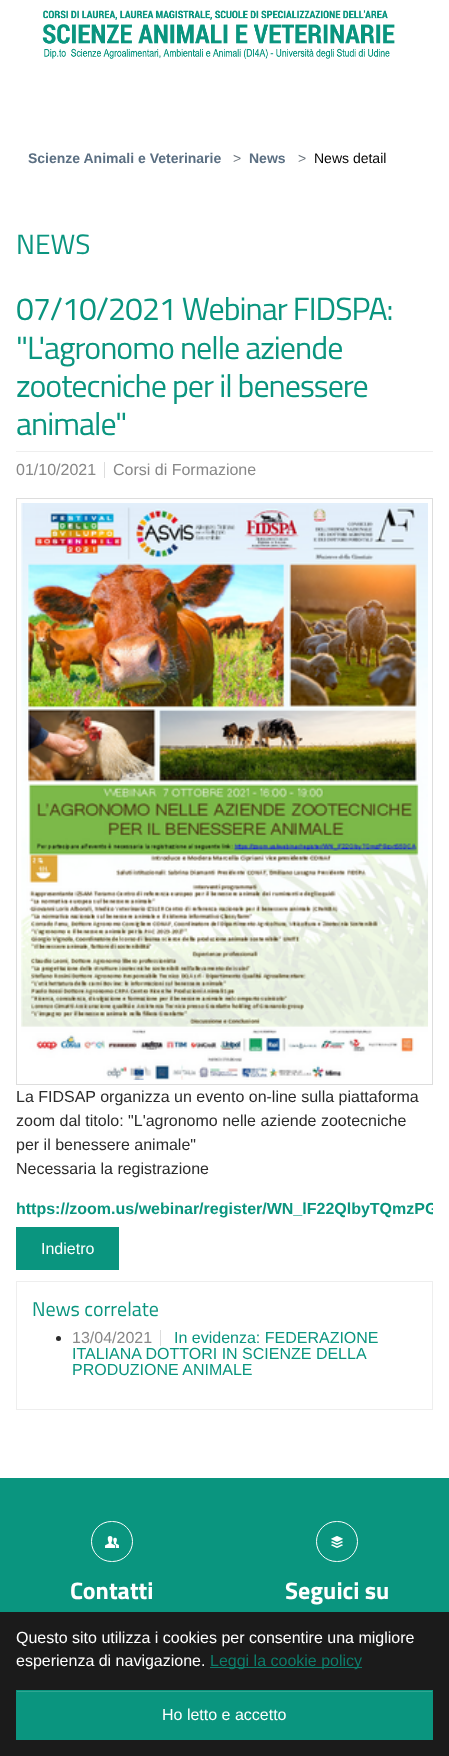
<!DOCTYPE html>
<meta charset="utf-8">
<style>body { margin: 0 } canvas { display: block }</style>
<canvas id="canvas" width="449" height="1756"></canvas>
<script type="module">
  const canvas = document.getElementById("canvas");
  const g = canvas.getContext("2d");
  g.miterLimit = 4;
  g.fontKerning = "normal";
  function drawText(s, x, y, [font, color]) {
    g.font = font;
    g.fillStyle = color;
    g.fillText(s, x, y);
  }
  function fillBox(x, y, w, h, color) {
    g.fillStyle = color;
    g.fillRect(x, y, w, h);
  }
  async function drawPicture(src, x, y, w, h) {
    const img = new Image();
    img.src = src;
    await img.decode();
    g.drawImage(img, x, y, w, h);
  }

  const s1 = ["bold 14px Liberation Sans", "#5B6F82"];
  const s2 = ["14px Liberation Sans", "#6C757D"];
  const s3 = ["14px Liberation Sans", "#000000"];
  const s4 = ["28px Titillium Web", "#0A957F"];
  const s5 = ["32px Titillium Web", "#0A957F"];
  const s6 = ["16px Liberation Sans", "#888888"];
  const s7 = ["16px Liberation Sans", "#2B2B2B"];
  const s8 = ["bold 16px Liberation Sans", "#0A957F"];
  const s9 = ["16px Liberation Sans", "#FFFFFF"];
  const s10 = ["20px Titillium Web", "#0A957F"];
  const s11 = ["16px Liberation Sans", "#0A957F"];
  const s12 = ["bold 24px Titillium Web", "#FFFFFF"];
  const s13 = ["16px Liberation Sans", "#0D7D6B"];

  fillBox(0, 0, 449, 1756, "#FFFFFF");
  await drawPicture("pic1.png", 42, 10, 353, 49);
  drawText("Scienze Animali e Veterinarie", 28, 163, s1);
  drawText(">", 233, 163, s2);
  drawText("News", 249, 163, s1);
  drawText(">", 298, 163, s2);
  drawText("News detail", 314, 163, s3);
  drawText("NEWS", 16, 254, s4);
  g.letterSpacing = "-1px";
  drawText("07/10/2021 Webinar FIDSPA:", 16, 320, s5);
  drawText("\"L'agronomo nelle aziende", 16, 359, s5);
  drawText("zootecniche per il benessere", 16, 397, s5);
  drawText("animale\"", 16, 435, s5);
  fillBox(16, 451, 417, 1, "#EEEEEE");
  fillBox(104, 462, 1, 16, "#DDDDDD");
  g.letterSpacing = "0px";
  drawText("01/10/2021", 16, 475, s6);
  drawText("Corsi di Formazione", 113, 475, s6);
  g.strokeStyle = "#DDDDDD";
  g.strokeRect(16.5, 498.5, 416, 586);
  await drawPicture("pic2.png", 21, 503, 407, 577);
  drawText("La FIDSAP organizza un evento on-line sulla piattaforma", 16, 1102, s7);
  drawText("zoom dal titolo: \"L'agronomo nelle aziende zootecniche", 16, 1126, s7);
  drawText("per il benessere animale\"", 16, 1150, s7);
  drawText("Necessaria la registrazione", 16, 1174, s7);
  g.save();
  g.beginPath();
  g.rect(16, 289, 417, 1121);
  g.clip();
  drawText("https://zoom.us/webinar/register/WN_lF22QlbyTQmzPG", 16, 1214, s8);
  g.restore();
  fillBox(16, 1227, 103, 43, "#0A957F");
  drawText("Indietro", 41, 1254, s9);
  g.strokeStyle = "#EEEEEE";
  g.strokeRect(16.5, 1281.5, 416, 128);
  drawText("News correlate", 32, 1316, s10);
  g.fillStyle = "#2B2B2B";
  g.beginPath();
  g.arc(58.5, 1338.5, 2.5, 0, Math.PI * 2);
  g.fill();
  fillBox(160, 1330, 1, 16, "#DDDDDD");
  drawText("13/04/2021", 72, 1343, s6);
  drawText("In evidenza: FEDERAZIONE", 174, 1343, s11);
  drawText("ITALIANA DOTTORI IN SCIENZE DELLA", 72, 1359, s11);
  drawText("PRODUZIONE ANIMALE", 72, 1375, s11);
  fillBox(0, 1478, 449, 134, "#0A957F");
  g.beginPath();
  g.roundRect(91.5, 1521.5, 41, 40, 20);
  g.strokeStyle = "#FFFFFF";
  g.stroke();
  await drawPicture("pic3.png", 105, 1536, 14, 12);
  drawText("Contatti", 70, 1599, s12);
  g.beginPath();
  g.roundRect(316.5, 1521.5, 41, 40, 20);
  g.stroke();
  await drawPicture("pic4.png", 331, 1536, 12, 12);
  drawText("Seguici su", 285, 1599, s12);
  fillBox(0, 1612, 449, 144, "#1B1B1B");
  drawText("Questo sito utilizza i cookies per consentire una migliore", 16, 1643, s9);
  drawText("esperienza di navigazione.", 16, 1666, s9);
  fillBox(210, 1667, 152, 1, "#0D7D6B");
  drawText("Leggi la cookie policy", 210, 1666, s13);
  fillBox(16, 1690, 417, 50, "#0A957F");
  fillBox(17, 1691, 415, 1, "#2FA592");
  drawText("Ho letto e accetto", 162, 1720, s9);
</script>
